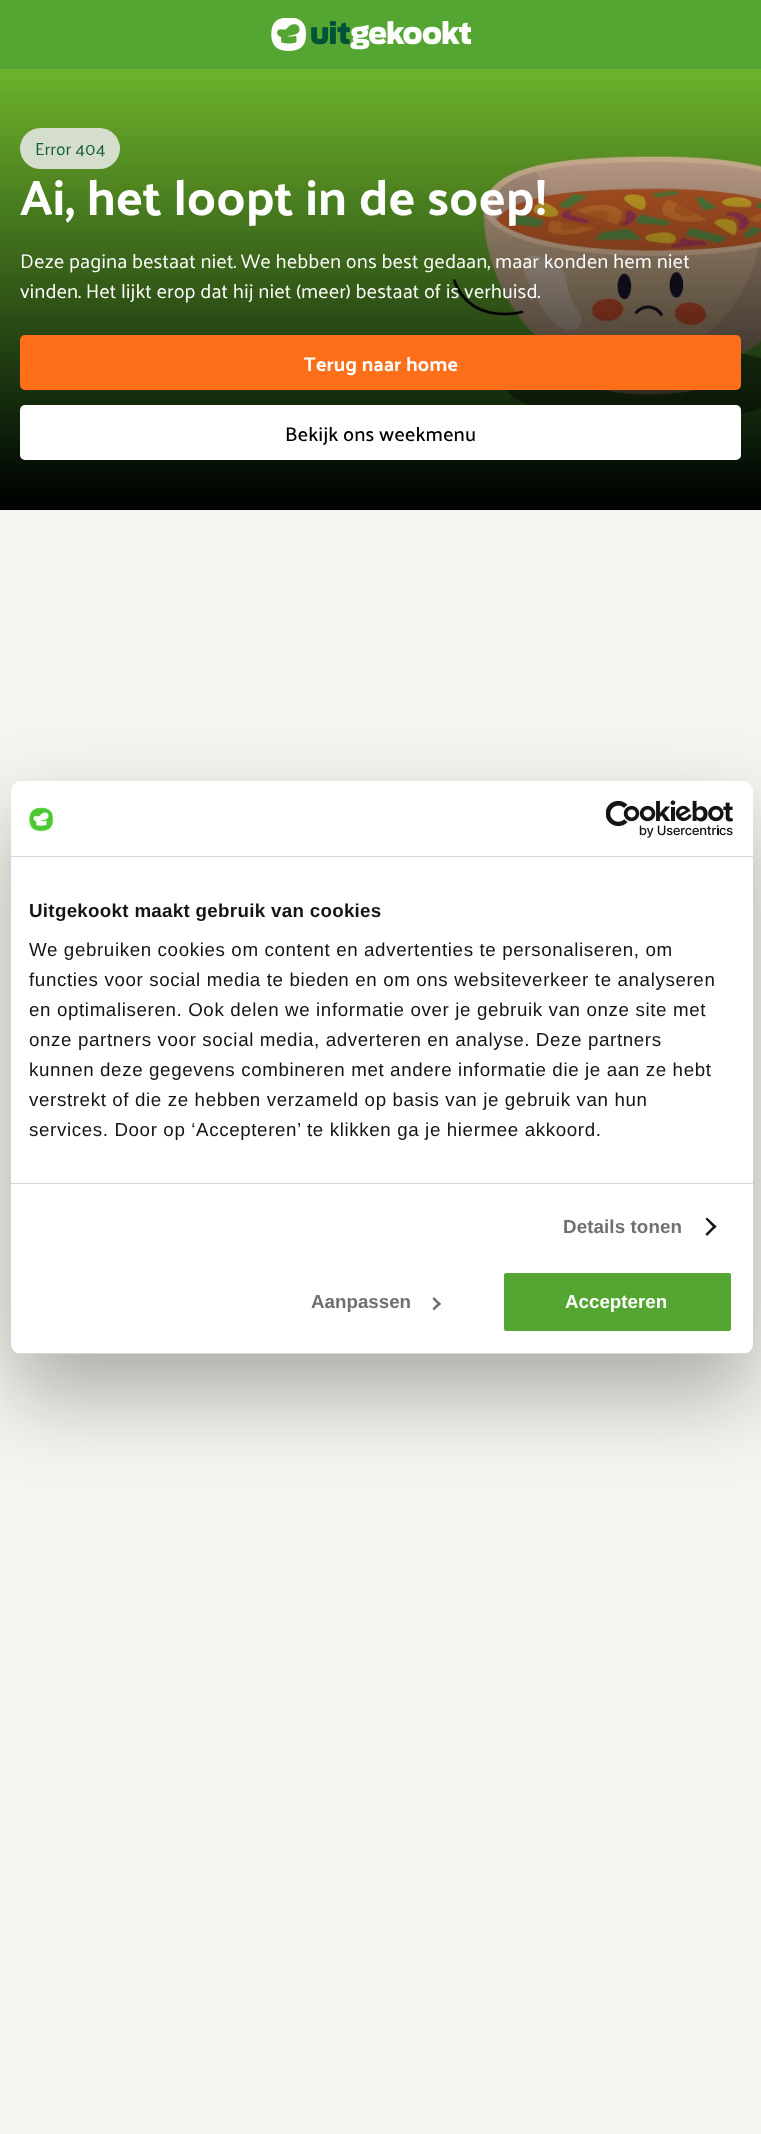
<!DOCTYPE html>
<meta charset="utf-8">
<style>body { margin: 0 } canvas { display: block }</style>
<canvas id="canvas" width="761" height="2134"></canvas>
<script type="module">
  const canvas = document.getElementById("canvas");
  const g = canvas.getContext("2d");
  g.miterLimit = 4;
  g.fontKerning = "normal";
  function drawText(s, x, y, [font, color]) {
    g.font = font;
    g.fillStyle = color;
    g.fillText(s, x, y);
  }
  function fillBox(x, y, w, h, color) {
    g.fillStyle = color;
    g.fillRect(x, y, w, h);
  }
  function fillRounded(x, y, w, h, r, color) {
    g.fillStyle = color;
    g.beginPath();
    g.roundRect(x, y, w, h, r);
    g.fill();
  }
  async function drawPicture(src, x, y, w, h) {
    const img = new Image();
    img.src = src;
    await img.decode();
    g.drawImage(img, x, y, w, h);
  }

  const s1 = ["17.5px Palanquin", "#145F32"];
  const s2 = ["bold 50px Palanquin", "#FFFFFF"];
  const s3 = ["20px Palanquin", "#FFFFFF"];
  const s4 = ["bold 20px Palanquin", "#FFFFFF"];
  const s5 = ["500 20px Palanquin", "#000000"];
  const s6 = ["bold 18.75px Liberation Sans", "#141414"];
  const s7 = ["18.75px Liberation Sans", "#141414"];
  const s8 = ["bold 18.75px Liberation Sans", "#707070"];
  const s9 = ["bold 18.75px Liberation Sans", "#FFFFFF"];

  fillBox(0, 0, 761, 2134, "#F3F6EF");
  fillBox(0, 0, 761, 69, "#55A532");
  await drawPicture("pic1.png", 271, 18, 200, 33);
  await drawPicture("pic2.png", 0, 69, 761, 441);
  fillRounded(20, 128, 100, 41, 20.5, "#D5DDCC");
  drawText("Error 404", 35, 155, s1);
  drawText("Ai, het loopt in de soep!", 20, 215, s2);
  drawText("Deze pagina bestaat niet. We hebben ons best gedaan, maar konden hem niet", 20, 268, s3);
  drawText("vinden. Het lijkt erop dat hij niet (meer) bestaat of is verhuisd.", 20, 298, s3);
  fillRounded(20, 335, 721, 55, 5, "#FF6F1A");
  drawText("Terug naar home", 304, 371, s4);
  fillRounded(20, 405, 721, 55, 5, "#FFFFFF");
  drawText("Bekijk ons weekmenu", 285, 441, s5);
  g.fillStyle = "rgba(0, 0, 0, 0.3)";
  g.filter = "blur(42.5px)";
  g.beginPath();
  g.roundRect(11, 821, 742, 573, 10);
  g.fill();
  g.filter = "none";
  fillRounded(11, 781, 742, 573, 10, "#FFFFFF");
  fillBox(11, 856, 742, 1, "#D6D6D6");
  await drawPicture("pic3.png", 29, 807, 25, 25);
  await drawPicture("pic4.png", 606, 800, 127, 38);
  fillBox(11, 1183, 742, 1, "#D6D6D6");
  g.letterSpacing = "0.3px";
  drawText("Uitgekookt maakt gebruik van cookies", 29, 917, s6);
  g.letterSpacing = "0.62px";
  drawText("We gebruiken cookies om content en advertenties te personaliseren, om", 29, 956, s7);
  drawText("functies voor social media te bieden en om ons websiteverkeer te analyseren", 29, 986, s7);
  drawText("en optimaliseren. Ook delen we informatie over je gebruik van onze site met", 29, 1016, s7);
  drawText("onze partners voor social media, adverteren en analyse. Deze partners", 29, 1046, s7);
  drawText("kunnen deze gegevens combineren met andere informatie die je aan ze hebt", 29, 1076, s7);
  drawText("verstrekt of die ze hebben verzameld op basis van je gebruik van hun", 29, 1106, s7);
  drawText("services. Door op ‘Accepteren’ te klikken ga je hiermee akkoord.", 29, 1136, s7);
  g.letterSpacing = "0.1px";
  drawText("Details tonen", 563, 1233, s8);
  g.fillStyle = "#141414";
  g.beginPath();
  g.moveTo(707, 1217.5);
  g.lineTo(716.5, 1226.5);
  g.lineTo(714.5, 1228.5);
  g.lineTo(705.5, 1219);
  g.closePath();
  g.fill();
  g.beginPath();
  g.moveTo(714.5, 1225);
  g.lineTo(716.5, 1226.5);
  g.lineTo(707, 1236);
  g.lineTo(705.5, 1234);
  g.closePath();
  g.fill();
  g.save();
  g.beginPath();
  g.roundRect(11, 781, 742, 573, 10);
  g.clip();
  fillBox(11, 1353, 742, 1, "#D6D6D6");
  g.restore();
  g.letterSpacing = "0px";
  drawText("Aanpassen", 311, 1308, s8);
  g.beginPath();
  g.moveTo(434, 1297);
  g.lineTo(441, 1304);
  g.lineTo(439, 1305.5);
  g.lineTo(432.5, 1299);
  g.closePath();
  g.fill();
  g.beginPath();
  g.moveTo(439, 1302);
  g.lineTo(441, 1304);
  g.lineTo(434, 1310.5);
  g.lineTo(432.5, 1308.5);
  g.closePath();
  g.fill();
  g.fillStyle = "#54A532";
  g.beginPath();
  g.roundRect(502.5, 1271.5, 230, 61, 3.5);
  g.fill();
  g.strokeStyle = "#FFFFFF";
  g.lineWidth = 3;
  g.stroke();
  drawText("Accepteren", 565, 1308, s9);
</script>
